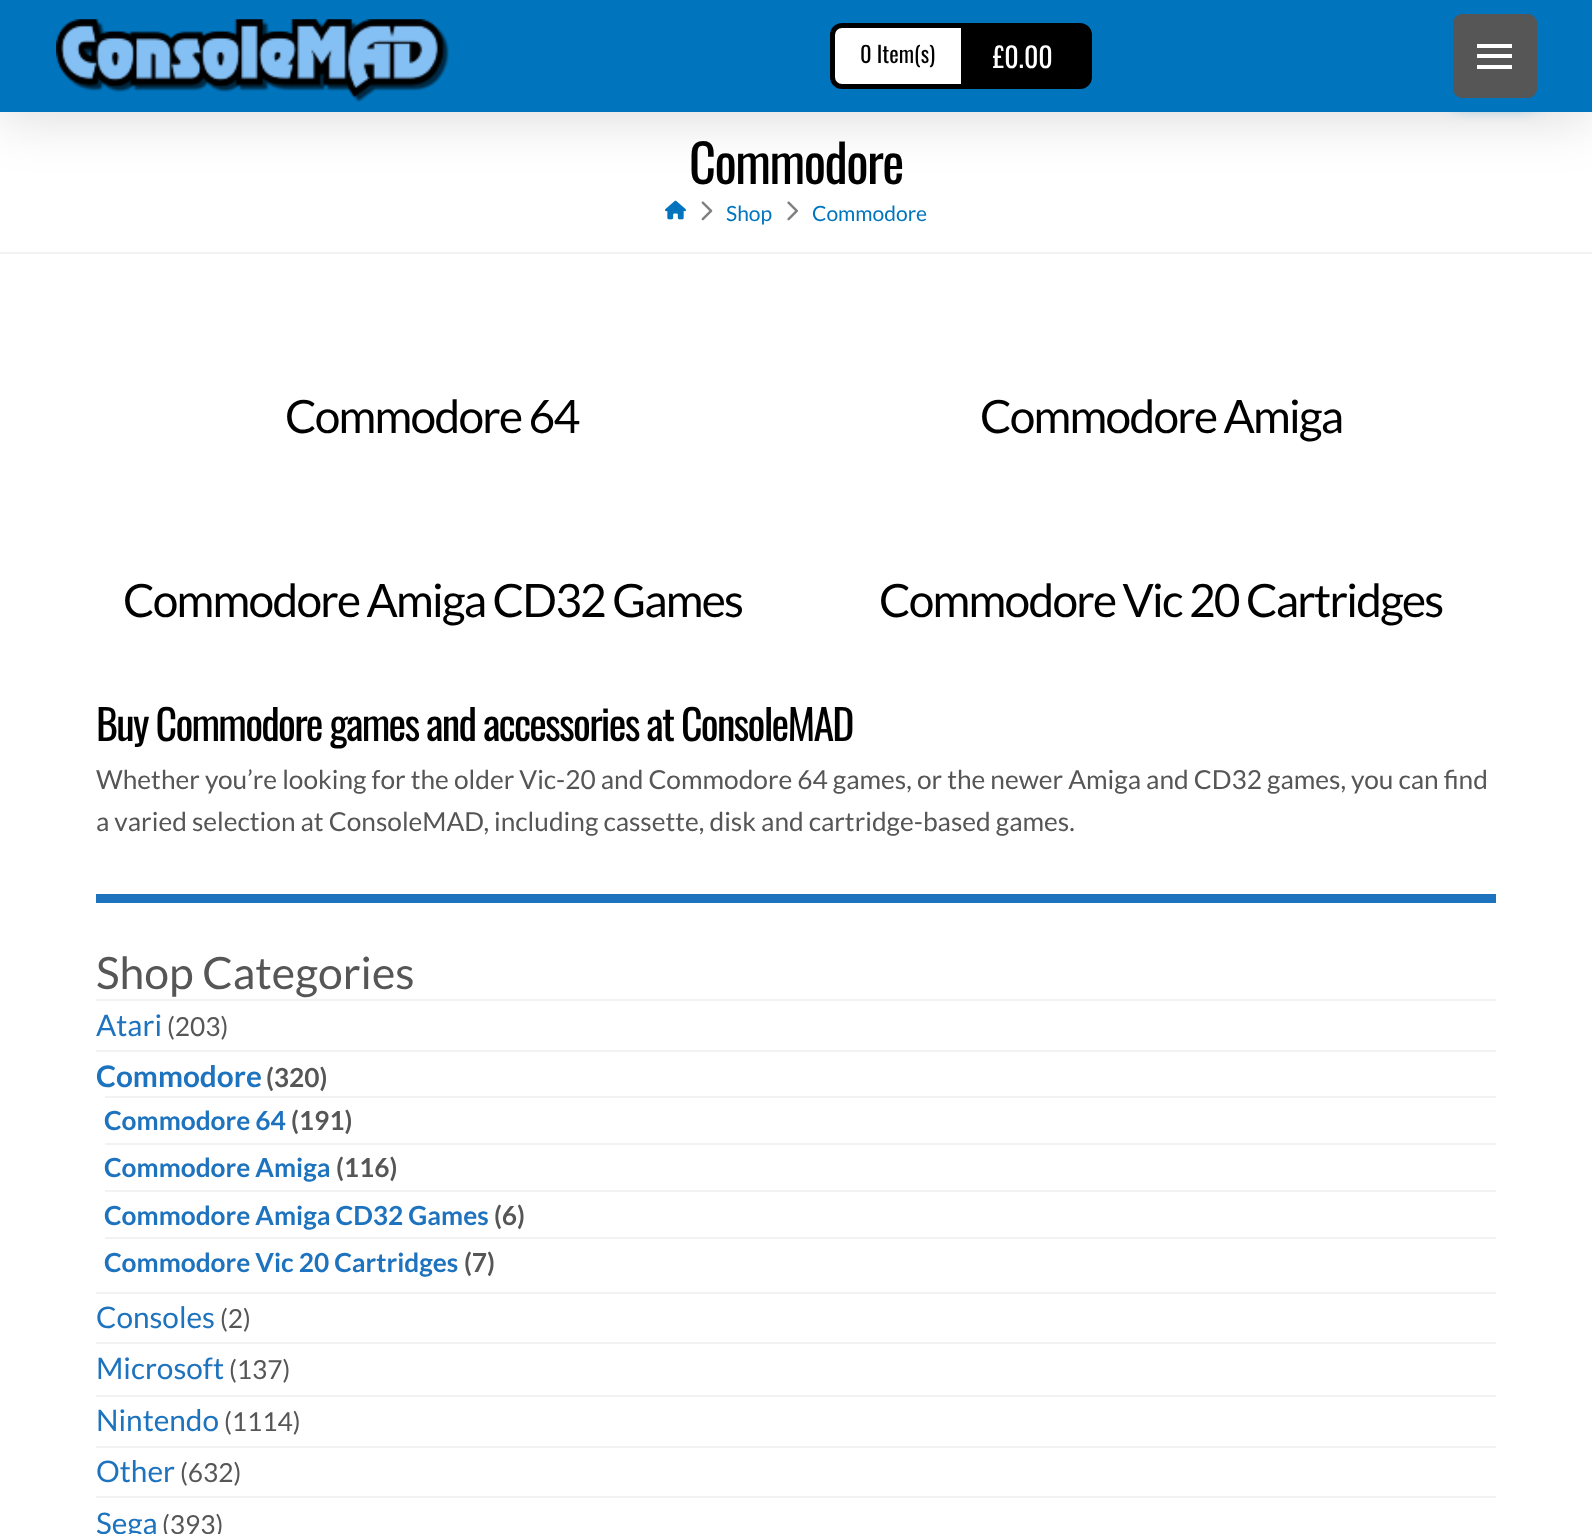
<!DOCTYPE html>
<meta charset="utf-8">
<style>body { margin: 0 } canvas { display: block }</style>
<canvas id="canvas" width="1592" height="1534"></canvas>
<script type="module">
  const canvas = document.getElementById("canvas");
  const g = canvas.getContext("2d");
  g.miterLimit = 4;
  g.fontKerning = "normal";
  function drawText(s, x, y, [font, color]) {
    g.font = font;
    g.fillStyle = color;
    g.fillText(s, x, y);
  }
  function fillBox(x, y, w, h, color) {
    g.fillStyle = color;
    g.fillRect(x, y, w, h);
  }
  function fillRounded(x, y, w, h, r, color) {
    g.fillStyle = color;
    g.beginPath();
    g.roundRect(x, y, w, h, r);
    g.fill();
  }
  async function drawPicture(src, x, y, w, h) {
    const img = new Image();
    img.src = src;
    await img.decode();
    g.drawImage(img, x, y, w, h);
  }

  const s1 = ["22.5px Oswald", "#000000"];
  const s2 = ["28px Oswald", "#FFFFFF"];
  const s3 = ["52.5px Oswald", "#000000"];
  const s4 = ["21px Lato", "#0075BE"];
  const s5 = ["46px Lato", "#000000"];
  const s6 = ["42px Oswald", "#000000"];
  const s7 = ["26.25px Lato", "#565656"];
  const s8 = ["44.5px Lato", "#565656"];
  const s9 = ["29.75px Lato", "#1E73BE"];
  const s10 = ["bold 29.75px Lato", "#1E73BE"];
  const s11 = ["bold 26.25px Lato", "#565656"];
  const s12 = ["bold 26.25px Lato", "#1E73BE"];

  fillBox(0, 0, 1592, 1534, "#FFFFFF");
  await drawPicture("pic2.png", 665, 200, 21, 20);
  g.fillStyle = "rgba(0, 0, 0, 0.15)";
  g.filter = "blur(28px)";
  g.beginPath();
  g.rect(0, 4, 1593, 112);
  g.fill();
  g.filter = "none";
  fillBox(0, 0, 1592, 112, "#0075BE");
  await drawPicture("pic1.png", 56, 19, 394, 83);
  g.fillStyle = "#FFFFFF";
  g.beginPath();
  g.roundRect(832.5, 25.5, 257, 61, 9.5);
  g.fill();
  g.strokeStyle = "#000000";
  g.lineWidth = 5;
  g.stroke();
  drawText("0 Item(s)", 860, 63, s1);
  fillBox(961, 28, 126, 56, "#000000");
  drawText("£0.00", 993, 68, s2);
  g.fillStyle = "#0075BE";
  g.filter = "blur(9px)";
  g.beginPath();
  g.roundRect(1453, 18, 84, 84, 9);
  g.fill();
  g.filter = "none";
  fillRounded(1453, 14, 84, 84, 9, "#565656");
  fillBox(1477, 44, 35, 4, "#FFFFFF");
  fillBox(1477, 54, 35, 4, "#FFFFFF");
  fillBox(1477, 65, 35, 4, "#FFFFFF");
  fillBox(0, 252, 1592, 2, "#F2F2F2");
  g.letterSpacing = "-1.5px";
  drawText("Commodore", 689, 184, s3);
  await drawPicture("pic3.png", 701, 201, 12, 20);
  g.letterSpacing = "0px";
  drawText("Shop", 726, 221, s4);
  await drawPicture("pic4.png", 787, 201, 11, 20);
  drawText("Commodore", 812, 221, s4);
  g.letterSpacing = "-1.75px";
  drawText("Commodore 64", 285, 433, s5);
  drawText("Commodore Amiga", 980, 433, s5);
  drawText("Commodore Amiga CD32 Games", 123, 617, s5);
  drawText("Commodore Vic 20 Cartridges", 879, 617, s5);
  drawText("Buy Commodore games and accessories at ConsoleMAD", 96, 741, s6);
  g.letterSpacing = "0px";
  drawText("Whether you’re looking for the older Vic-20 and Commodore 64 games, or the newer Amiga and CD32 games, you can find", 96, 789, s7);
  drawText("a varied selection at ConsoleMAD, including cassette, disk and cartridge-based games.", 96, 831, s7);
  fillBox(96, 894, 1400, 9, "#1E73BE");
  drawText("Shop Categories", 96, 989, s8);
  fillBox(96, 999, 1400, 2, "#F2F2F2");
  drawText("Atari", 96, 1036, s9);
  drawText("(203)", 167, 1036, s7);
  fillBox(96, 1050, 1400, 2, "#F2F2F2");
  drawText("Commodore", 96, 1087, s10);
  drawText("(320)", 266, 1087, s11);
  fillBox(105, 1096, 1391, 2, "#F2F2F2");
  drawText("Commodore 64", 104, 1130, s12);
  drawText("(191)", 291, 1130, s11);
  fillBox(105, 1143, 1391, 2, "#F2F2F2");
  drawText("Commodore Amiga", 104, 1177, s12);
  drawText("(116)", 336, 1177, s11);
  fillBox(105, 1190, 1391, 2, "#F2F2F2");
  drawText("Commodore Amiga CD32 Games", 104, 1225, s12);
  drawText("(6)", 494, 1225, s11);
  fillBox(105, 1237, 1391, 2, "#F2F2F2");
  drawText("Commodore Vic 20 Cartridges", 104, 1272, s12);
  drawText("(7)", 464, 1272, s11);
  fillBox(96, 1292, 1400, 2, "#F2F2F2");
  drawText("Consoles", 96, 1328, s9);
  drawText("(2)", 220, 1328, s7);
  fillBox(96, 1342, 1400, 2, "#F2F2F2");
  drawText("Microsoft", 96, 1379, s9);
  drawText("(137)", 229, 1379, s7);
  fillBox(96, 1395, 1400, 2, "#F2F2F2");
  drawText("Nintendo", 96, 1431, s9);
  drawText("(1114)", 224, 1431, s7);
  fillBox(96, 1446, 1400, 2, "#F2F2F2");
  drawText("Other", 96, 1482, s9);
  drawText("(632)", 180, 1482, s7);
  fillBox(96, 1496, 1400, 2, "#F2F2F2");
  drawText("Sega", 96, 1534, s9);
  drawText("(393)", 162, 1534, s7);
</script>
